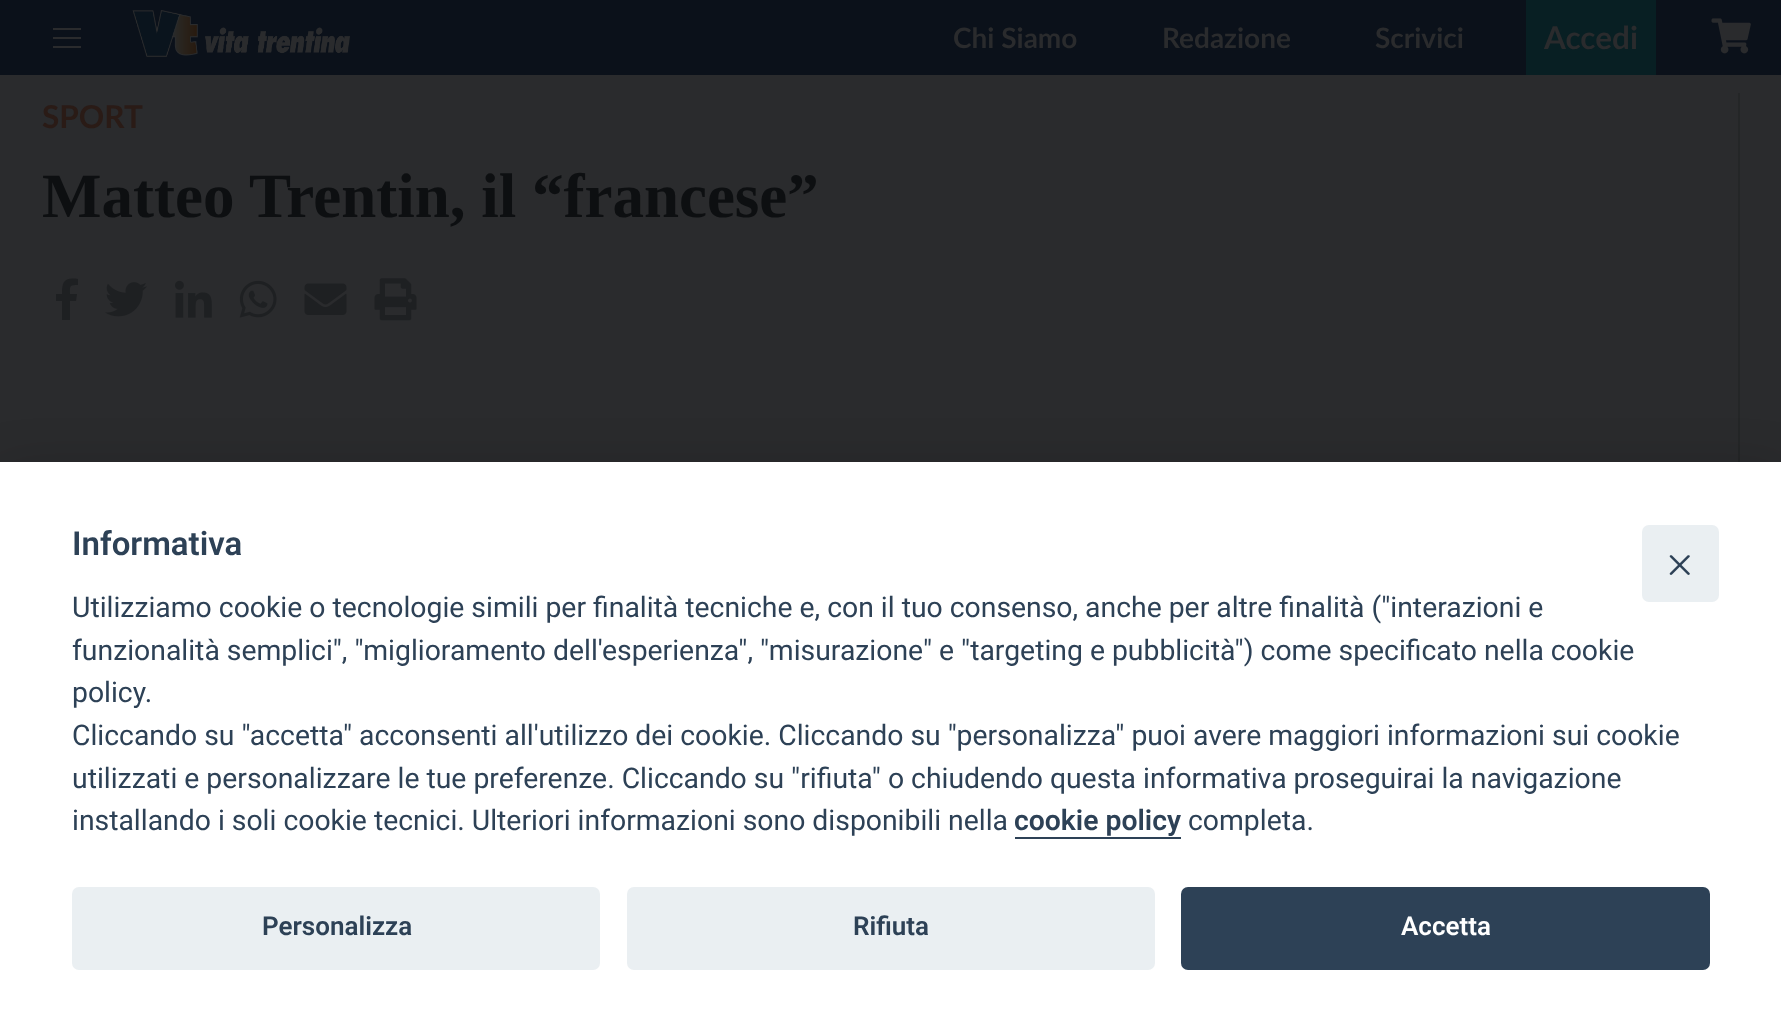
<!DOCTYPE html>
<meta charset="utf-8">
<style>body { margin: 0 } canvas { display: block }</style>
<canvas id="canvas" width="1781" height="1031"></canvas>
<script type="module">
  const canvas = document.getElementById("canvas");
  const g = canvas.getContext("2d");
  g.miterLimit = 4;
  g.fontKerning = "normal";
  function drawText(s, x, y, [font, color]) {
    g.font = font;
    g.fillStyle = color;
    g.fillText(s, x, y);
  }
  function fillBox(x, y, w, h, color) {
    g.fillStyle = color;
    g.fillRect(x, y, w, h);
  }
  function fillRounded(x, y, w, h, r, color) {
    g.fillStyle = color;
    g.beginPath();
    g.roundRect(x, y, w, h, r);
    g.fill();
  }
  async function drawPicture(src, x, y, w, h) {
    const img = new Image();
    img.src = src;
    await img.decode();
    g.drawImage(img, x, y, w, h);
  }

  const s1 = ["bold 28px Lato", "#2A2B2D"];
  const s2 = ["bold 31.5px Lato", "#2A2B2D"];
  const s3 = ["bold 31.5px Lato", "#2A1B16"];
  const s4 = ["bold 63px Liberation Serif", "#0D0F11"];
  const s5 = ["600 33px Roboto", "#2D4156"];
  const s6 = ["28.35px Roboto", "#2D4156"];
  const s7 = ["600 28.35px Roboto", "#2D4156"];
  const s8 = ["600 26px Roboto", "#2D4156"];
  const s9 = ["600 26px Roboto", "#FFFFFF"];

  fillBox(0, 0, 1781, 1031, "#2A2B2D");
  fillBox(0, 0, 1781, 75, "#0B111A");
  fillBox(53, 28, 28, 2, "#2A2B2D");
  fillBox(53, 37, 28, 2, "#2A2B2D");
  fillBox(53, 46, 28, 2, "#2A2B2D");
  await drawPicture("pic1.png", 132, 10, 218, 47);
  drawText("Chi Siamo", 953, 48, s1);
  drawText("Redazione", 1162, 48, s1);
  drawText("Scrivici", 1375, 48, s1);
  fillBox(1526, 0, 130, 75, "#081F23");
  drawText("Accedi", 1544, 49, s2);
  await drawPicture("pic2.png", 1711, 18, 40, 36);
  fillBox(1738, 93, 2, 369, "#242627");
  drawText("SPORT", 42, 128, s3);
  drawText("Matteo Trentin, il “francese”", 42, 217, s4);
  g.fillStyle = "#1E2022";
  g.beginPath();
  g.moveTo(62, 320);
  g.lineTo(62, 301);
  g.lineTo(56, 301);
  g.lineTo(56, 294);
  g.lineTo(62, 294);
  g.bezierCurveTo(62, 282, 64, 277, 78, 279);
  g.lineTo(78, 285);
  g.bezierCurveTo(69, 285, 70, 286, 70, 294);
  g.lineTo(77, 294);
  g.lineTo(76, 301);
  g.lineTo(70, 301);
  g.lineTo(70, 320);
  g.closePath();
  g.fill();
  await drawPicture("pic3.png", 105, 282, 42, 35);
  await drawPicture("pic4.png", 175, 280, 37, 38);
  await drawPicture("pic5.png", 239, 280, 38, 38);
  await drawPicture("pic6.png", 304, 283, 43, 32);
  await drawPicture("pic7.png", 374, 278, 43, 43);
  g.fillStyle = "rgba(2, 2, 3, 0.28)";
  g.filter = "blur(29.5px)";
  g.beginPath();
  g.rect(0, 481, 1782, 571);
  g.fill();
  g.filter = "none";
  fillBox(0, 462, 1781, 569, "#FFFFFF");
  drawText("Informativa", 72, 555, s5);
  drawText("Utilizziamo cookie o tecnologie simili per finalità tecniche e, con il tuo consenso, anche per altre finalità (\"interazioni e", 72, 617, s6);
  drawText("funzionalità semplici\", \"miglioramento dell'esperienza\", \"misurazione\" e \"targeting e pubblicità\") come specificato nella cookie", 72, 660, s6);
  drawText("policy.", 72, 702, s6);
  drawText("Cliccando su \"accetta\" acconsenti all'utilizzo dei cookie. Cliccando su \"personalizza\" puoi avere maggiori informazioni sui cookie", 72, 745, s6);
  drawText("utilizzati e personalizzare le tue preferenze. Cliccando su \"rifiuta\" o chiudendo questa informativa proseguirai la navigazione", 72, 788, s6);
  drawText("installando i soli cookie tecnici. Ulteriori informazioni sono disponibili nella", 72, 830, s6);
  drawText("cookie policy", 1014, 830, s7);
  fillBox(1015, 837, 166, 2, "#2D4156");
  drawText("completa.", 1188, 830, s6);
  fillRounded(72, 887, 528, 83, 7, "#EAEFF2");
  drawText("Personalizza", 262, 935, s8);
  fillRounded(627, 887, 528, 83, 7, "#EAEFF2");
  drawText("Rifiuta", 853, 935, s8);
  fillRounded(1181, 887, 529, 83, 7, "#2D4156");
  drawText("Accetta", 1401, 935, s9);
  fillRounded(1642, 525, 77, 77, 7, "#EAEFF2");
  g.fillStyle = "#2D4156";
  g.beginPath();
  g.moveTo(1689.5, 555.5);
  g.bezierCurveTo(1690, 556, 1690, 556.5, 1689.5, 557);
  g.lineTo(1672, 574.5);
  g.bezierCurveTo(1671.5, 575, 1670.5, 575, 1670, 574.5);
  g.bezierCurveTo(1669.5, 574, 1669.5, 573.5, 1670, 573);
  g.lineTo(1687.5, 555.5);
  g.bezierCurveTo(1688, 555, 1689, 555, 1689.5, 555.5);
  g.closePath();
  g.fill();
  g.beginPath();
  g.moveTo(1670, 555.5);
  g.bezierCurveTo(1670.5, 555, 1671.5, 555, 1672, 555.5);
  g.lineTo(1689.5, 573);
  g.bezierCurveTo(1690, 573.5, 1690, 574, 1689.5, 574.5);
  g.bezierCurveTo(1689, 575, 1688, 575, 1687.5, 574.5);
  g.lineTo(1670, 557);
  g.bezierCurveTo(1669.5, 556.5, 1669.5, 556, 1670, 555.5);
  g.closePath();
  g.fill();
</script>
